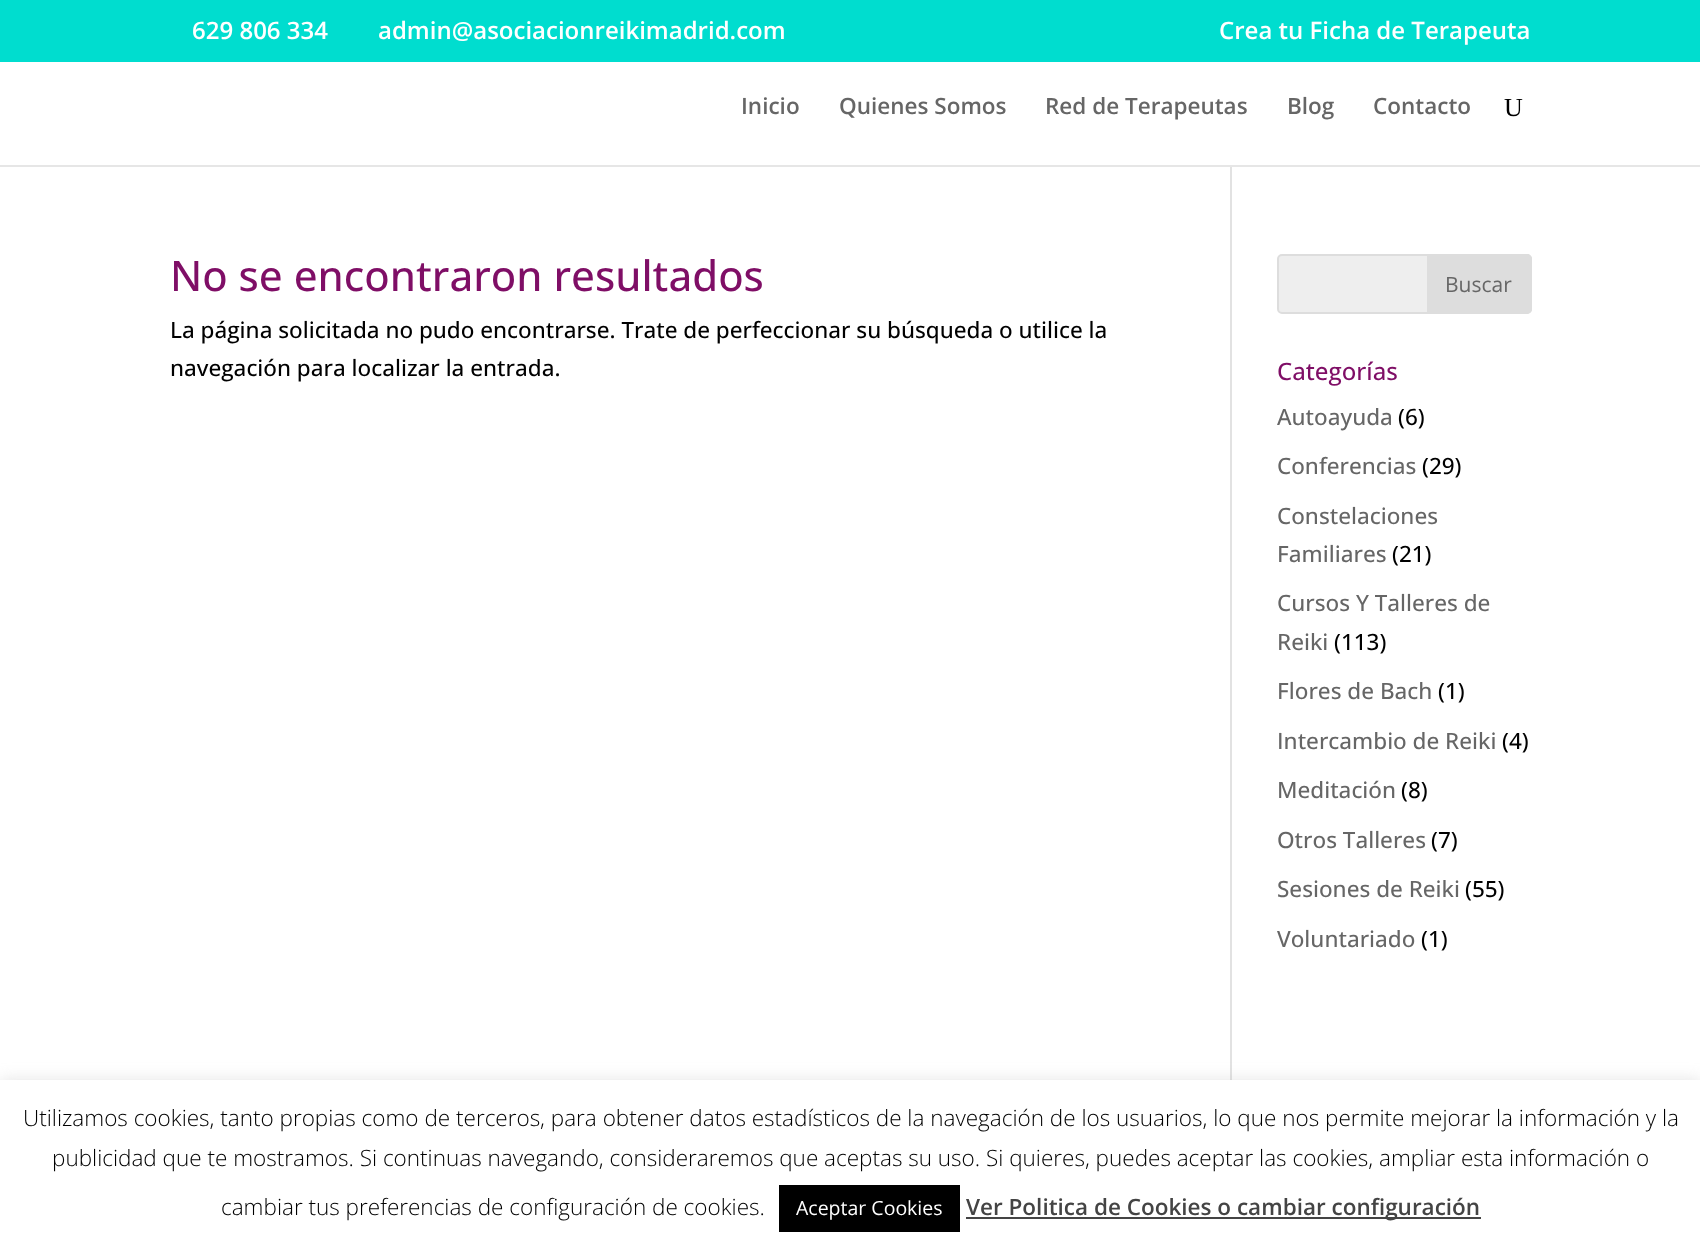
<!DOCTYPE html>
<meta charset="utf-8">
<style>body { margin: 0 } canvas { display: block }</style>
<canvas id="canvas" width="1700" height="1249"></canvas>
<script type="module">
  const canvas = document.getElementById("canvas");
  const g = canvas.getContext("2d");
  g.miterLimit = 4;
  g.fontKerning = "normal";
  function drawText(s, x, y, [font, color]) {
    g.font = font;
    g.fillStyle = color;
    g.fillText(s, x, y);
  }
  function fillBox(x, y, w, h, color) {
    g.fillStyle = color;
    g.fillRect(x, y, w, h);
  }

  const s1 = ["600 24px Open Sans", "#FFFFFF"];
  const s2 = ["600 22.5px Open Sans", "#666666"];
  const s3 = ["26px Liberation Serif", "#000000"];
  const s4 = ["500 42px Open Sans", "#7F0E66"];
  const s5 = ["500 22.5px Open Sans", "#000000"];
  const s6 = ["21px Open Sans", "#666666"];
  const s7 = ["500 24px Open Sans", "#7F0E66"];
  const s8 = ["500 22.5px Open Sans", "#666666"];
  const s9 = ["300 22.5px Open Sans", "#000000"];
  const s10 = ["19.5px Open Sans", "#FFFFFF"];
  const s11 = ["600 22.5px Open Sans", "#444444"];

  fillBox(0, 0, 1700, 1249, "#FFFFFF");
  fillBox(0, 0, 1700, 62, "#00DDCF");
  drawText("629 806 334", 192, 39, s1);
  drawText("admin@asociacionreikimadrid.com", 378, 39, s1);
  drawText("Crea tu Ficha de Terapeuta", 1219, 39, s1);
  fillBox(0, 165, 1700, 2, "#E6E6E6");
  drawText("Inicio", 741, 114, s2);
  drawText("Quienes Somos", 839, 114, s2);
  drawText("Red de Terapeutas", 1045, 114, s2);
  drawText("Blog", 1287, 114, s2);
  drawText("Contacto", 1373, 114, s2);
  drawText("U", 1504, 116, s3);
  fillBox(1230, 167, 2, 913, "#E2E2E2");
  drawText("No se encontraron resultados", 170, 291, s4);
  drawText("La página solicitada no pudo encontrarse. Trate de perfeccionar su búsqueda o utilice la", 170, 338, s5);
  drawText("navegación para localizar la entrada.", 170, 376, s5);
  g.fillStyle = "#EEEEEE";
  g.beginPath();
  g.roundRect(1278, 255, 253, 58, 4);
  g.fill();
  g.strokeStyle = "#DDDDDD";
  g.lineWidth = 2;
  g.stroke();
  g.fillStyle = "#DDDDDD";
  g.beginPath();
  g.roundRect(1428, 255, 103, 58, [0, 4, 4, 0]);
  g.fill();
  g.stroke();
  drawText("Buscar", 1445, 292, s6);
  drawText("Categorías", 1277, 380, s7);
  drawText("Autoayuda", 1277, 425, s8);
  drawText("(6)", 1398, 425, s5);
  drawText("Conferencias", 1277, 474, s8);
  drawText("(29)", 1422, 474, s5);
  drawText("Constelaciones", 1277, 524, s8);
  drawText("Familiares", 1277, 562, s8);
  drawText("(21)", 1392, 562, s5);
  drawText("Cursos Y Talleres de", 1277, 611, s8);
  drawText("Reiki", 1277, 650, s8);
  drawText("(113)", 1334, 650, s5);
  drawText("Flores de Bach", 1277, 699, s8);
  drawText("(1)", 1438, 699, s5);
  drawText("Intercambio de Reiki", 1277, 749, s8);
  drawText("(4)", 1502, 749, s5);
  drawText("Meditación", 1277, 798, s8);
  drawText("(8)", 1401, 798, s5);
  drawText("Otros Talleres", 1277, 848, s8);
  drawText("(7)", 1431, 848, s5);
  drawText("Sesiones de Reiki", 1277, 897, s8);
  drawText("(55)", 1465, 897, s5);
  drawText("Voluntariado", 1277, 947, s8);
  drawText("(1)", 1421, 947, s5);
  g.fillStyle = "rgba(172, 171, 171, 0.3)";
  g.filter = "blur(7.5px)";
  g.beginPath();
  g.rect(0, 1079, 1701, 169);
  g.fill();
  g.filter = "none";
  fillBox(0, 1080, 1700, 169, "#FFFFFF");
  drawText("Utilizamos cookies, tanto propias como de terceros, para obtener datos estadísticos de la navegación de los usuarios, lo que nos permite mejorar la información y la", 23, 1126, s9);
  drawText("publicidad que te mostramos. Si continuas navegando, consideraremos que aceptas su uso. Si quieres, puedes aceptar las cookies, ampliar esta información o", 52, 1166, s9);
  drawText("cambiar tus preferencias de configuración de cookies.", 221, 1215, s9);
  fillBox(779, 1185, 181, 47, "#000000");
  drawText("Aceptar Cookies", 796, 1215, s10);
  fillBox(966, 1217, 515, 2, "#444444");
  drawText("Ver Politica de Cookies o cambiar configuración", 966, 1215, s11);
</script>
